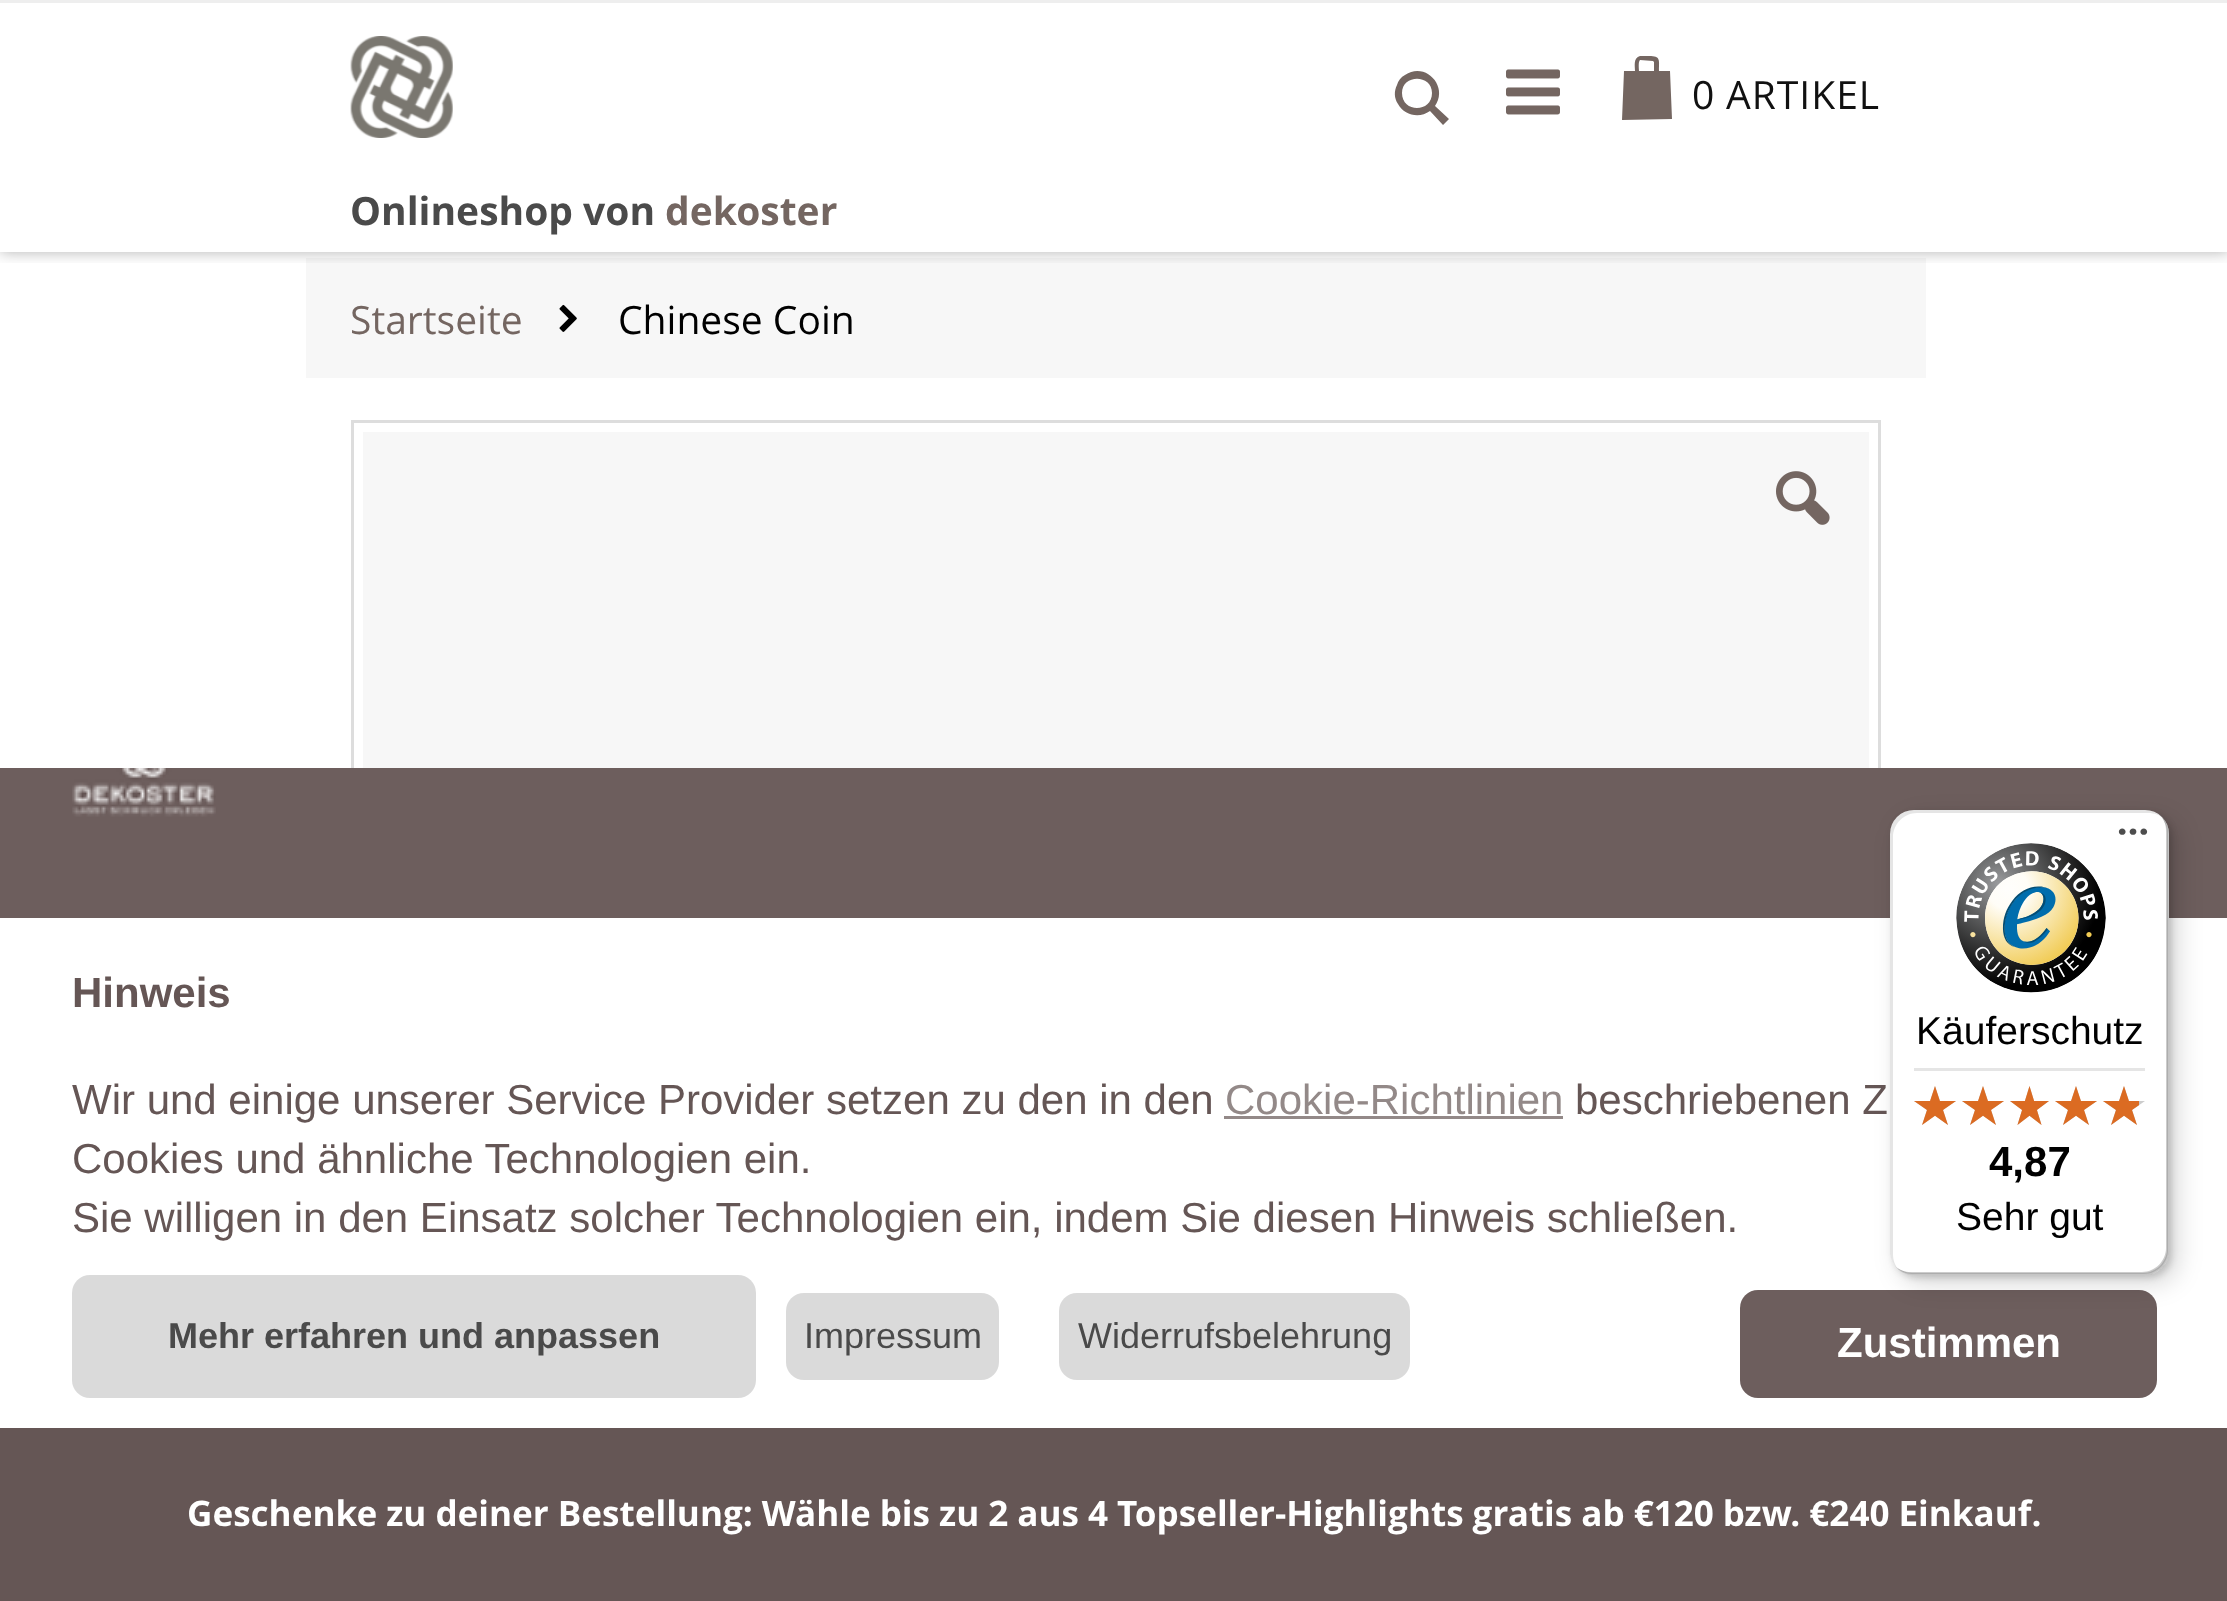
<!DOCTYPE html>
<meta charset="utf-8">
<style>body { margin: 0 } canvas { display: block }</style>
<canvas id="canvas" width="2227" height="1601"></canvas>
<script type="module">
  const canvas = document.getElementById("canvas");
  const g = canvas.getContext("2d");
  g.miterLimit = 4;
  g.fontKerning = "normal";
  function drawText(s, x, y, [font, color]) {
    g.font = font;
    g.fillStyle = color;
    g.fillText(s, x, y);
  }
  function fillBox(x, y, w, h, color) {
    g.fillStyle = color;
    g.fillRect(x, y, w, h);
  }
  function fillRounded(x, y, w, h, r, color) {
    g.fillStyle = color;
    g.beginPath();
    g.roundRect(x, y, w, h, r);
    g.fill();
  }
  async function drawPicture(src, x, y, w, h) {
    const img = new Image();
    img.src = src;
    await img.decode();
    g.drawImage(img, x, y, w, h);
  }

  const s1 = ["39px Open Sans", "#111111"];
  const s2 = ["bold 39px Open Sans", "#4A4A4A"];
  const s3 = ["bold 39px Open Sans", "#746661"];
  const s4 = ["39px Open Sans", "#746661"];
  const s5 = ["39px Open Sans", "#000000"];
  const s6 = ["bold 35.1px Open Sans", "#FFFFFF"];
  const s7 = ["bold 42px Liberation Sans", "#655655"];
  const s8 = ["42px Liberation Sans", "#655655"];
  const s9 = ["42px Liberation Sans", "#938988"];
  const s10 = ["bold 36px Liberation Sans", "#4A4A4A"];
  const s11 = ["36px Liberation Sans", "#4A4A4A"];
  const s12 = ["bold 42px Liberation Sans", "#FFFFFF"];
  const s13 = ["39px Liberation Sans", "#000000"];
  const s14 = ["bold 42px Liberation Sans", "#000000"];

  fillBox(0, 0, 2227, 1601, "#FFFFFF");
  fillBox(306, 258, 1620, 120, "#F7F7F7");
  g.save();
  g.beginPath();
  g.rect(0, 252, 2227, 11);
  g.clip();
  g.fillStyle = "rgba(0, 0, 0, 0.3)";
  g.filter = "blur(7.5px)";
  g.beginPath();
  g.rect(0, 0, 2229, 252);
  g.fill();
  g.filter = "none";
  g.restore();
  fillBox(0, 0, 2227, 3, "#EEEEEE");
  await drawPicture("pic1.png", 350, 36, 103, 102);
  g.fillStyle = "#746661";
  g.beginPath();
  g.moveTo(1435, 106);
  g.lineTo(1449, 119);
  g.lineTo(1443, 125);
  g.lineTo(1430, 111);
  g.bezierCurveTo(1419, 119, 1404, 115, 1398, 104);
  g.bezierCurveTo(1394, 98, 1394, 91, 1397, 85);
  g.bezierCurveTo(1398, 81, 1401, 77, 1405, 75);
  g.bezierCurveTo(1425, 61, 1449, 86, 1435, 106);
  g.closePath();
  g.moveTo(1432, 93);
  g.bezierCurveTo(1432, 74, 1402, 74, 1402, 93);
  g.bezierCurveTo(1402, 113, 1432, 113, 1432, 93);
  g.closePath();
  g.fill();
  await drawPicture("pic2.png", 1506, 69, 54, 46);
  g.beginPath();
  g.moveTo(1640, 56);
  g.bezierCurveTo(1633, 58, 1635, 66, 1635, 71);
  g.lineTo(1624, 71);
  g.lineTo(1622, 120);
  g.lineTo(1672, 119);
  g.lineTo(1670, 71);
  g.lineTo(1659, 71);
  g.bezierCurveTo(1659, 60, 1661, 56, 1649, 56);
  g.closePath();
  g.moveTo(1653, 61);
  g.lineTo(1654, 62);
  g.lineTo(1654, 71);
  g.lineTo(1639, 71);
  g.bezierCurveTo(1639, 69, 1638, 62, 1640, 60);
  g.closePath();
  g.fill();
  g.letterSpacing = "1px";
  drawText("0", 1692, 109, s1);
  drawText("ARTIKEL", 1726, 109, s1);
  g.letterSpacing = "0px";
  drawText("Onlineshop von", 350, 225, s2);
  drawText("dekoster", 665, 225, s3);
  drawText("Startseite", 350, 334, s4);
  await drawPicture("pic3.png", 559, 304, 18, 28);
  drawText("Chinese Coin", 618, 334, s5);
  fillBox(363, 432, 1506, 336, "#F7F7F7");
  g.strokeStyle = "#DDDDDD";
  g.lineWidth = 3;
  g.strokeRect(352.5, 421.5, 1527, 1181);
  await drawPicture("pic4.png", 1776, 471, 54, 54);
  fillBox(0, 1428, 2227, 173, "#655655");
  g.wordSpacing = "-0.1px";
  drawText("Geschenke zu deiner Bestellung: Wähle bis zu 2 aus 4 Topseller-Highlights gratis ab €120 bzw. €240 Einkauf.", 187, 1526, s6);
  fillBox(351, 918, 1530, 510, "#FFFFFF");
  fillBox(0, 768, 2227, 150, "#6D5E5D");
  await drawPicture("pic5.png", 72, 768, 144, 49);
  g.wordSpacing = "0px";
  drawText("Hinweis", 72, 1007, s7);
  drawText("Wir und einige unserer Service Provider setzen zu den in den", 72, 1114, s8);
  drawText("Cookie-Richtlinien", 1225, 1114, s9);
  fillBox(1224, 1116, 339, 3, "#938988");
  drawText("beschriebenen Z", 1575, 1114, s8);
  drawText("Cookies und ähnliche Technologien ein.", 72, 1173, s8);
  drawText("Sie willigen in den Einsatz solcher Technologien ein, indem Sie diesen Hinweis schließen.", 72, 1232, s8);
  fillRounded(72, 1275, 684, 123, 18, "#DADADA");
  drawText("Mehr erfahren und anpassen", 168, 1348, s10);
  fillRounded(786, 1293, 213, 87, 18, "#DADADA");
  drawText("Impressum", 804, 1348, s11);
  fillRounded(1059, 1293, 351, 87, 18, "#DADADA");
  drawText("Widerrufsbelehrung", 1078, 1348, s11);
  fillRounded(1740, 1290, 417, 108, 18, "#6D5E5D");
  drawText("Zustimmen", 1837, 1357, s12);
  g.fillStyle = "rgba(0, 0, 0, 0.15)";
  g.filter = "blur(12px)";
  g.beginPath();
  g.roundRect(1899, 819, 279, 465, 24);
  g.fill();
  g.filter = "none";
  g.filter = "blur(3px)";
  g.beginPath();
  g.roundRect(1893, 813, 279, 465, 24);
  g.fill();
  g.filter = "none";
  fillRounded(1890, 810, 279, 465, 24, "#FFFFFF");
  g.fillStyle = "rgba(0, 0, 0, 0.1)";
  g.beginPath();
  g.moveTo(1917, 813);
  g.lineTo(2148, 813);
  g.bezierCurveTo(2154, 813, 2160, 815, 2164, 819);
  g.bezierCurveTo(2159, 814, 2153, 810, 2145, 810);
  g.lineTo(1914, 810);
  g.bezierCurveTo(1901, 810, 1890, 821, 1890, 834);
  g.lineTo(1890, 1251);
  g.bezierCurveTo(1890, 1259, 1894, 1265, 1899, 1270);
  g.bezierCurveTo(1895, 1266, 1893, 1260, 1893, 1254);
  g.lineTo(1893, 837);
  g.bezierCurveTo(1893, 824, 1904, 813, 1917, 813);
  g.closePath();
  g.fill();
  g.fillStyle = "rgba(0, 0, 0, 0.2)";
  g.beginPath();
  g.moveTo(1895, 1266);
  g.bezierCurveTo(1900, 1271, 1906, 1275, 1914, 1275);
  g.lineTo(2145, 1275);
  g.bezierCurveTo(2158, 1275, 2169, 1264, 2169, 1251);
  g.lineTo(2169, 834);
  g.bezierCurveTo(2169, 826, 2165, 820, 2160, 815);
  g.bezierCurveTo(2164, 819, 2166, 825, 2166, 831);
  g.lineTo(2166, 1248);
  g.bezierCurveTo(2166, 1261, 2155, 1272, 2142, 1272);
  g.lineTo(1911, 1272);
  g.bezierCurveTo(1905, 1272, 1899, 1270, 1895, 1266);
  g.closePath();
  g.fill();
  g.fillStyle = "rgba(50, 50, 50, 0.2)";
  g.beginPath();
  g.moveTo(1895, 1266);
  g.bezierCurveTo(1900, 1272, 1906, 1275, 1914, 1275);
  g.lineTo(2145, 1275);
  g.bezierCurveTo(2158, 1275, 2169, 1264, 2169, 1251);
  g.lineTo(2169, 834);
  g.bezierCurveTo(2169, 826, 2166, 820, 2160, 815);
  g.bezierCurveTo(2164, 820, 2167, 826, 2167, 832);
  g.lineTo(2167, 1249);
  g.bezierCurveTo(2167, 1262, 2156, 1273, 2143, 1273);
  g.lineTo(1912, 1273);
  g.bezierCurveTo(1906, 1273, 1900, 1270, 1895, 1266);
  g.closePath();
  g.fill();
  g.fillStyle = "rgba(255, 255, 255, 0.3)";
  g.beginPath();
  g.moveTo(1901, 1271);
  g.bezierCurveTo(1905, 1274, 1909, 1275, 1914, 1275);
  g.lineTo(2145, 1275);
  g.bezierCurveTo(2158, 1275, 2169, 1264, 2169, 1251);
  g.lineTo(2169, 834);
  g.bezierCurveTo(2169, 829, 2168, 825, 2165, 821);
  g.bezierCurveTo(2167, 825, 2168, 828, 2168, 832);
  g.lineTo(2168, 1250);
  g.bezierCurveTo(2168, 1263, 2157, 1274, 2144, 1274);
  g.lineTo(1912, 1274);
  g.bezierCurveTo(1908, 1274, 1905, 1273, 1901, 1271);
  g.closePath();
  g.fill();
  await drawPicture("pic6.png", 2118, 828, 30, 7);
  await drawPicture("pic7.png", 1956, 843, 150, 150);
  drawText("Käuferschutz", 1916, 1044, s13);
  fillBox(1914, 1068, 231, 3, "#E5E5E5");
  await drawPicture("pic8.png", 1914, 1086, 42, 39);
  await drawPicture("pic8.png", 1962, 1086, 42, 39);
  await drawPicture("pic9.png", 2010, 1086, 39, 39);
  await drawPicture("pic8.png", 2055, 1086, 42, 39);
  await drawPicture("pic8.png", 2103, 1086, 42, 39);
  await drawPicture("pic10.png", 1914, 1086, 42, 39);
  await drawPicture("pic10.png", 1962, 1086, 42, 39);
  await drawPicture("pic11.png", 2010, 1086, 39, 39);
  await drawPicture("pic10.png", 2055, 1086, 42, 39);
  await drawPicture("pic12.png", 2103, 1086, 36, 39);
  drawText("4,87", 1989, 1176, s14);
  drawText("Sehr gut", 1956, 1230, s13);
</script>
